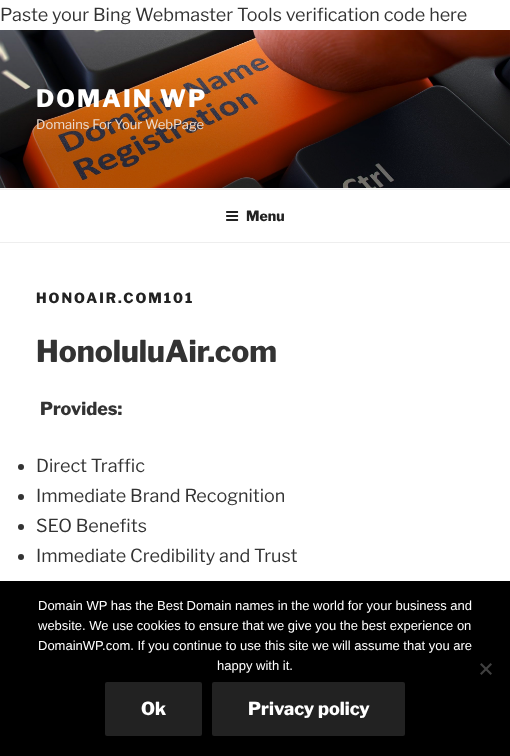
<!DOCTYPE html>
<meta charset="utf-8">
<style>body { margin: 0 } canvas { display: block }</style>
<canvas id="canvas" width="510" height="756"></canvas>
<script type="module">
  const canvas = document.getElementById("canvas");
  const g = canvas.getContext("2d");
  g.miterLimit = 4;
  g.fontKerning = "normal";
  function drawText(s, x, y, [font, color]) {
    g.font = font;
    g.fillStyle = color;
    g.fillText(s, x, y);
  }
  function fillBox(x, y, w, h, color) {
    g.fillStyle = color;
    g.fillRect(x, y, w, h);
  }
  function fillRounded(x, y, w, h, r, color) {
    g.fillStyle = color;
    g.beginPath();
    g.roundRect(x, y, w, h, r);
    g.fill();
  }
  async function drawPicture(src, x, y, w, h) {
    const img = new Image();
    img.src = src;
    await img.decode();
    g.drawImage(img, x, y, w, h);
  }

  const s1 = ["100 18px Libre Franklin", "#333333"];
  const s2 = ["100 24px 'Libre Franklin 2'", "#FFFFFF"];
  const s3 = ["100 13px Libre Franklin", "#EBDCD1"];
  const s4 = ["100 14px 'Libre Franklin 2'", "#222222"];
  const s5 = ["100 30px 'Libre Franklin 2'", "#333333"];
  const s6 = ["100 18px 'Libre Franklin 2'", "#333333"];
  const s7 = ["13px Liberation Sans", "#FFFFFF"];
  const s8 = ["100 18px 'Libre Franklin 2'", "#FFFFFF"];

  fillBox(0, 0, 510, 756, "#FFFFFF");
  drawText("Paste your Bing Webmaster Tools verification code here", 0, 21, s1);
  fillBox(0, 188, 510, 1, "#FAFAFA");
  await drawPicture("pic1.png", 0, 30, 510, 158);
  g.letterSpacing = "2px";
  drawText("DOMAIN WP", 36, 107, s2);
  g.letterSpacing = "0px";
  drawText("Domains For Your WebPage", 36, 129, s3);
  fillBox(0, 189, 510, 1, "#EEEEEE");
  fillBox(0, 242, 510, 1, "#EEEEEE");
  await drawPicture("pic2.png", 226, 211, 13, 10);
  drawText("Menu", 246, 221, s4);
  g.letterSpacing = "2px";
  drawText("HONOAIR.COM101", 36, 303, s4);
  g.letterSpacing = "0px";
  drawText("HonoluluAir.com", 36, 362, s5);
  drawText("Provides:", 40, 415, s6);
  g.beginPath();
  g.arc(21, 467, 3, 0, Math.PI * 2);
  g.fill();
  drawText("Direct Traffic", 36, 472, s1);
  g.beginPath();
  g.arc(21, 497, 3, 0, Math.PI * 2);
  g.fill();
  drawText("Immediate Brand Recognition", 36, 502, s1);
  g.beginPath();
  g.arc(21, 527, 3, 0, Math.PI * 2);
  g.fill();
  drawText("SEO Benefits", 36, 532, s1);
  g.beginPath();
  g.arc(21, 557, 3, 0, Math.PI * 2);
  g.fill();
  drawText("Immediate Credibility and Trust", 36, 562, s1);
  fillBox(0, 581, 510, 175, "#000000");
  drawText("Domain WP has the Best Domain names in the world for your business and", 38, 610, s7);
  drawText("website. We use cookies to ensure that we give you the best experience on", 38, 630, s7);
  drawText("DomainWP.com. If you continue to use this site we will assume that you are", 38, 650, s7);
  drawText("happy with it.", 217, 670, s7);
  g.fillStyle = "#404040";
  g.beginPath();
  g.moveTo(490.5, 663);
  g.lineTo(492, 664.5);
  g.lineTo(481.5, 675);
  g.lineTo(480, 673.5);
  g.closePath();
  g.fill();
  g.beginPath();
  g.moveTo(480, 664.5);
  g.lineTo(481.5, 663);
  g.lineTo(492, 673.5);
  g.lineTo(490.5, 675);
  g.closePath();
  g.fill();
  fillRounded(105, 682, 97, 54, 2, "#222222");
  drawText("Ok", 141, 715, s8);
  fillRounded(212, 682, 193, 54, 2, "#222222");
  drawText("Privacy policy", 248, 715, s8);
</script>
